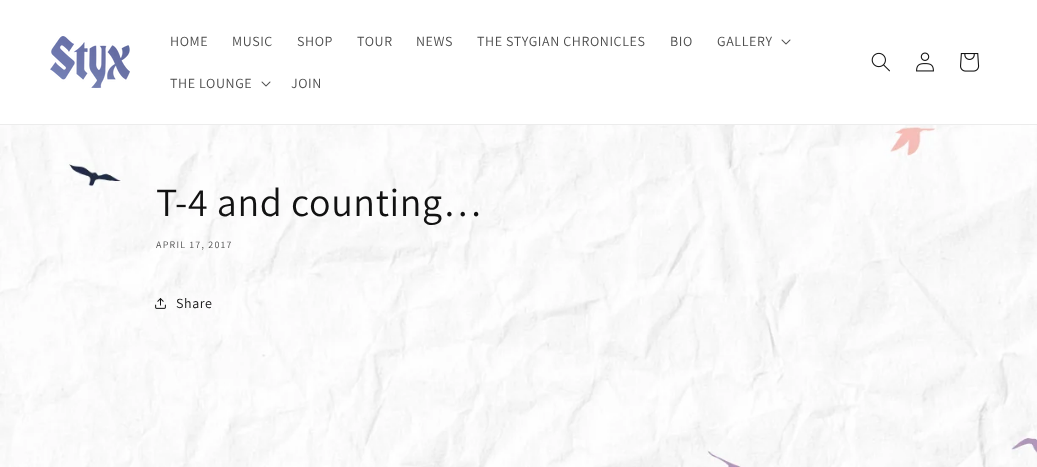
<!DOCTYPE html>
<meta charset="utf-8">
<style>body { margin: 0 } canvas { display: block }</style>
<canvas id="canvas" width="1037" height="467"></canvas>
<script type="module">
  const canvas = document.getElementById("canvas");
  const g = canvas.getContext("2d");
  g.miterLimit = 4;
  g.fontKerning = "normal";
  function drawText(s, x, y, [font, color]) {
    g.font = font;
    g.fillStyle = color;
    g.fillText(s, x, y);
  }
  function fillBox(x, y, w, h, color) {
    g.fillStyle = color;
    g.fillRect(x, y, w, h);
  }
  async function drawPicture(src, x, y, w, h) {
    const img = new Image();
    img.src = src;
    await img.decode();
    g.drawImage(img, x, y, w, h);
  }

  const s1 = ["14px Assistant", "#4C4C4C"];
  const s2 = ["40px Assistant", "#121212"];
  const s3 = ["10px Assistant", "#4C4C4C"];
  const s4 = ["14px Assistant", "#121212"];

  fillBox(0, 0, 1037, 467, "#FFFFFF");
  await drawPicture("pic1.png", 0, 125, 1037, 342);
  fillBox(0, 124, 1037, 1, "#ECECEC");
  await drawPicture("pic2.png", 50, 36, 80, 52);
  g.letterSpacing = "0.6px";
  drawText("HOME", 170, 46, s1);
  drawText("MUSIC", 232, 46, s1);
  drawText("SHOP", 297, 46, s1);
  drawText("TOUR", 357, 46, s1);
  drawText("NEWS", 416, 46, s1);
  drawText("THE STYGIAN CHRONICLES", 477, 46, s1);
  drawText("BIO", 670, 46, s1);
  drawText("GALLERY", 717, 46, s1);
  await drawPicture("pic3.png", 781, 39, 10, 6);
  drawText("THE LOUNGE", 170, 88, s1);
  await drawPicture("pic3.png", 261, 81, 10, 6);
  drawText("JOIN", 291, 88, s1);
  await drawPicture("pic4.png", 871, 52, 19, 20);
  await drawPicture("pic5.png", 916, 52, 18, 20);
  await drawPicture("pic6.png", 960, 53, 20, 19);
  drawText("T-4 and counting…", 156, 216, s2);
  g.letterSpacing = "1.25px";
  drawText("APRIL 17, 2017", 156, 248, s3);
  await drawPicture("pic7.png", 155, 298, 11, 11);
  g.letterSpacing = "0.6px";
  drawText("Share", 176, 308, s4);
</script>
